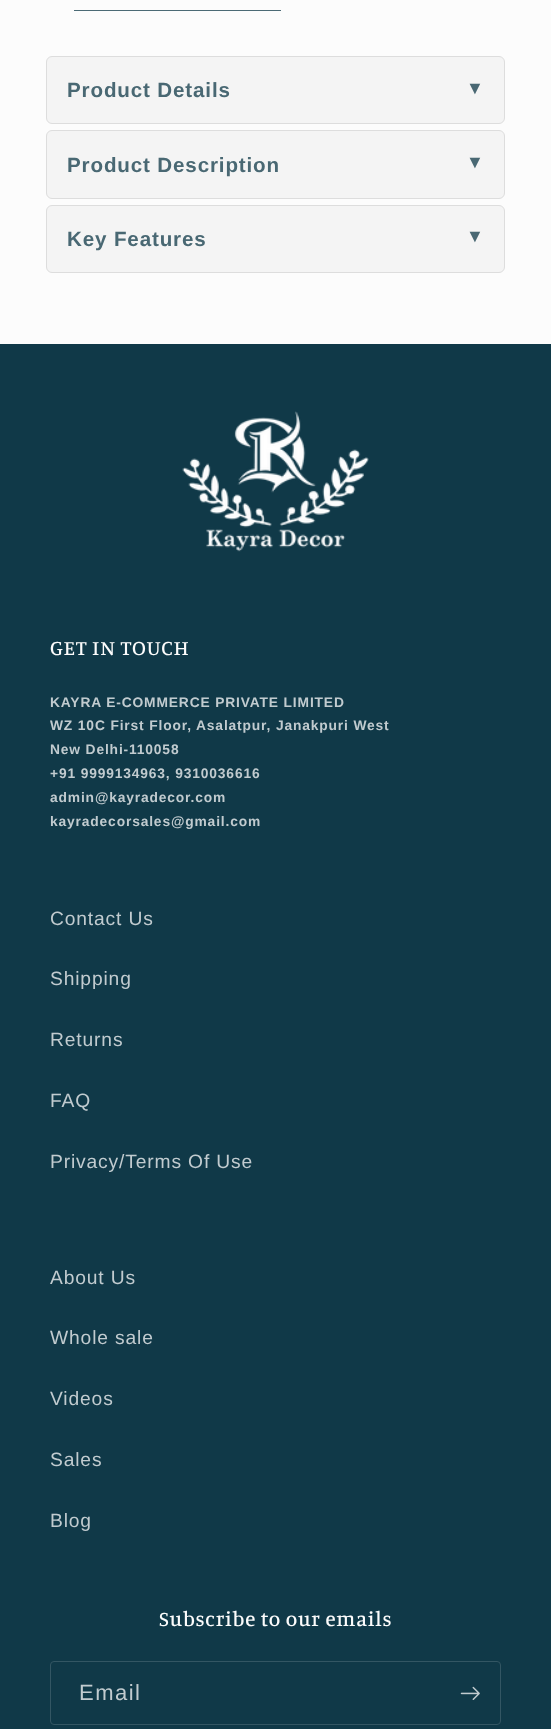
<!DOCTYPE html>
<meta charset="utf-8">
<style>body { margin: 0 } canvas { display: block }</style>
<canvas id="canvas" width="551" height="1729"></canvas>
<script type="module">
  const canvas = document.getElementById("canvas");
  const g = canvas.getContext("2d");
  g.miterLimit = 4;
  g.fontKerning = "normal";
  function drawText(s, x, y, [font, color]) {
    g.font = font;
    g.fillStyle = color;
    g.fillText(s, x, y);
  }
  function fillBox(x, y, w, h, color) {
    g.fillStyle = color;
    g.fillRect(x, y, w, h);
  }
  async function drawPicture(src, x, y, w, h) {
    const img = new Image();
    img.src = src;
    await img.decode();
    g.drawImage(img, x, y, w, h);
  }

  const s1 = ["bold 20.6px Arimo", "#496873"];
  const s2 = ["bold 18px Liberation Sans", "#496873"];
  const s3 = ["500 21px Manuale", "#FCFCFC"];
  const s4 = ["bold 13.8px Arimo", "#C1CBCF"];
  const s5 = ["19.25px Arimo", "#C1CBCF"];
  const s6 = ["22px Arimo", "#C1CBCF"];

  fillBox(0, 0, 551, 1729, "#FCFCFC");
  fillBox(74, 10, 207, 1, "#4B6A75");
  g.fillStyle = "#F4F4F4";
  g.beginPath();
  g.roundRect(46.5, 56.5, 458, 67, 5.5);
  g.fill();
  g.strokeStyle = "#DDDDDD";
  g.stroke();
  g.letterSpacing = "0.85px";
  drawText("Product Details", 67, 97, s1);
  drawText("▼", 466, 94, s2);
  g.fillStyle = "#F4F4F4";
  g.beginPath();
  g.roundRect(46.5, 130.5, 458, 68, 5.5);
  g.fill();
  g.stroke();
  drawText("Product Description", 67, 172, s1);
  drawText("▼", 466, 168, s2);
  g.fillStyle = "#F4F4F4";
  g.beginPath();
  g.roundRect(46.5, 205.5, 458, 67, 5.5);
  g.fill();
  g.stroke();
  drawText("Key Features", 67, 246, s1);
  drawText("▼", 466, 242, s2);
  fillBox(0, 344, 551, 1385, "#103948");
  await drawPicture("pic1.png", 182, 411, 187, 141);
  g.letterSpacing = "0.75px";
  drawText("GET IN TOUCH", 50, 655, s3);
  g.letterSpacing = "0.85px";
  drawText("KAYRA E-COMMERCE PRIVATE LIMITED", 50, 707, s4);
  drawText("WZ 10C First Floor, Asalatpur, Janakpuri West", 50, 730, s4);
  drawText("New Delhi-110058", 50, 754, s4);
  drawText("+91 9999134963, 9310036616", 50, 778, s4);
  drawText("admin@kayradecor.com", 50, 802, s4);
  drawText("kayradecorsales@gmail.com", 50, 826, s4);
  drawText("Contact Us", 50, 925, s5);
  drawText("Shipping", 50, 985, s5);
  drawText("Returns", 50, 1046, s5);
  drawText("FAQ", 50, 1107, s5);
  drawText("Privacy/Terms Of Use", 50, 1168, s5);
  drawText("About Us", 50, 1284, s5);
  drawText("Whole sale", 50, 1344, s5);
  drawText("Videos", 50, 1405, s5);
  drawText("Sales", 50, 1466, s5);
  drawText("Blog", 50, 1527, s5);
  g.letterSpacing = "0.75px";
  drawText("Subscribe to our emails", 159, 1626, s3);
  g.beginPath();
  g.roundRect(50.5, 1661.5, 450, 63, 3.5);
  g.strokeStyle = "#335663";
  g.stroke();
  g.letterSpacing = "1.5px";
  drawText("Email", 79, 1700, s6);
  await drawPicture("pic2.png", 460, 1686, 20, 14);
</script>
